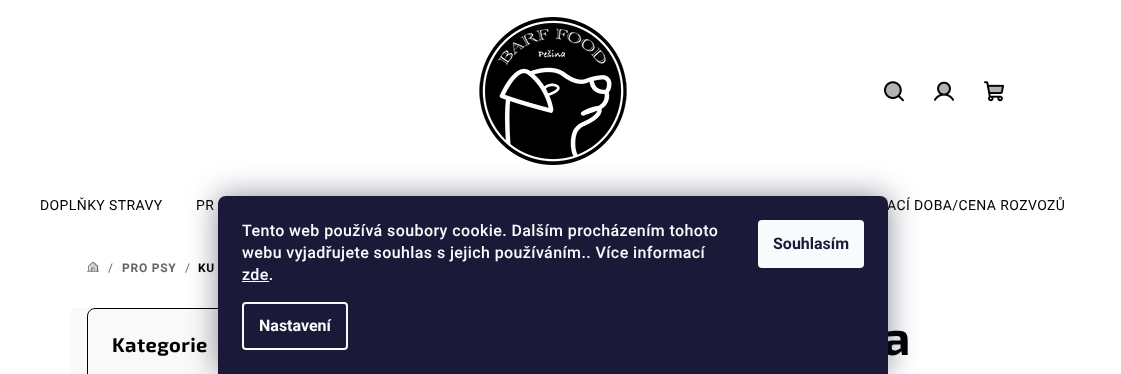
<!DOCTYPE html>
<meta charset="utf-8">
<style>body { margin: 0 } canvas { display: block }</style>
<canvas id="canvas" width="1121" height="374"></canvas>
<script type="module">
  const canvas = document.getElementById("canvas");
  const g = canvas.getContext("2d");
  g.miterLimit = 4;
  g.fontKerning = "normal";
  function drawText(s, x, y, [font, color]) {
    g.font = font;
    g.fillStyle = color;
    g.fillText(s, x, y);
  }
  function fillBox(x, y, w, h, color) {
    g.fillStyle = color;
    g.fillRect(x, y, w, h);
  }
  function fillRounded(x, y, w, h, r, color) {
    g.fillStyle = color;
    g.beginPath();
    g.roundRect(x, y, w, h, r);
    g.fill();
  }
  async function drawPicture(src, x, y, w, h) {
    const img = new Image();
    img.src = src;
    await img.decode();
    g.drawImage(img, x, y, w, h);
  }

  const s1 = ["14px Roboto", "#000000"];
  const s2 = ["12px Roboto", "#666666"];
  const s3 = ["bold 12px Roboto", "#666666"];
  const s4 = ["bold 12px Roboto", "#000000"];
  const s5 = ["bold 20px 'Exo 2'", "#000000"];
  const s6 = ["bold 48px 'Exo 2'", "#000000"];
  const s7 = ["500 16px Roboto", "#F8FAFB"];
  const s8 = ["bold 16px Roboto", "#F8FAFB"];
  const s9 = ["bold 16px Roboto", "#1A1937"];

  fillBox(0, 0, 1121, 374, "#FFFFFF");
  await drawPicture("pic1.png", 479, 17, 148, 148);
  await drawPicture("pic2.png", 884, 81, 20, 21);
  g.fillStyle = "rgba(0, 0, 0, 0.3)";
  g.beginPath();
  g.moveTo(893, 98);
  g.bezierCurveTo(903, 98, 903, 82, 893, 82);
  g.bezierCurveTo(882.5, 82, 882.5, 98, 893, 98);
  g.closePath();
  g.fill();
  await drawPicture("pic3.png", 934, 81, 20, 20);
  fillBox(939, 83, 10, 11, "rgba(0, 0, 0, 0.3)");
  await drawPicture("pic4.png", 984, 81, 20, 21);
  fillBox(989, 86, 13, 7, "rgba(0, 0, 0, 0.3)");
  g.letterSpacing = "0.4px";
  drawText("DOPLŇKY STRAVY", 40, 210, s1);
  drawText("PR", 196, 210, s1);
  drawText("ACÍ DOBA/CENA ROZVOZŮ", 887, 210, s1);
  await drawPicture("pic5.png", 87, 261, 12, 11);
  await drawPicture("pic6.png", 89, 262, 10, 10);
  g.letterSpacing = "0.75px";
  drawText("/", 108, 272, s2);
  drawText("PRO PSY", 122, 272, s3);
  drawText("/", 185, 272, s2);
  drawText("KU", 198, 272, s4);
  fillBox(71, 308, 147, 66, "#F9F9F9");
  g.beginPath();
  g.roundRect(87.5, 308.5, 357, 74, 7.5);
  g.strokeStyle = "#000000";
  g.stroke();
  g.letterSpacing = "0.4px";
  drawText("Kategorie", 112, 352, s5);
  drawText("a", 883, 355, s6);
  g.fillStyle = "rgba(27, 25, 57, 0.5)";
  g.filter = "blur(15px)";
  g.beginPath();
  g.roundRect(218, 196, 670, 178, 8);
  g.fill();
  g.filter = "none";
  g.fillStyle = "#1A1937";
  g.beginPath();
  g.roundRect(218, 196, 670, 178, [8, 8, 0, 0]);
  g.fill();
  drawText("Tento web používá soubory cookie. Dalším procházením tohoto", 242, 236, s7);
  drawText("webu vyjadřujete souhlas s jejich používáním.. Více informací", 242, 258, s7);
  drawText("zde.", 242, 280, s7);
  fillBox(242, 281, 27, 1, "#F8FAFB");
  g.beginPath();
  g.roundRect(243, 303, 104, 46, 3);
  g.strokeStyle = "#F8FAFB";
  g.lineWidth = 2;
  g.stroke();
  g.letterSpacing = "0px";
  drawText("Nastavení", 259, 331, s8);
  fillRounded(758, 220, 106, 48, 4, "#F8FAFB");
  drawText("Souhlasím", 773, 249, s9);
</script>
